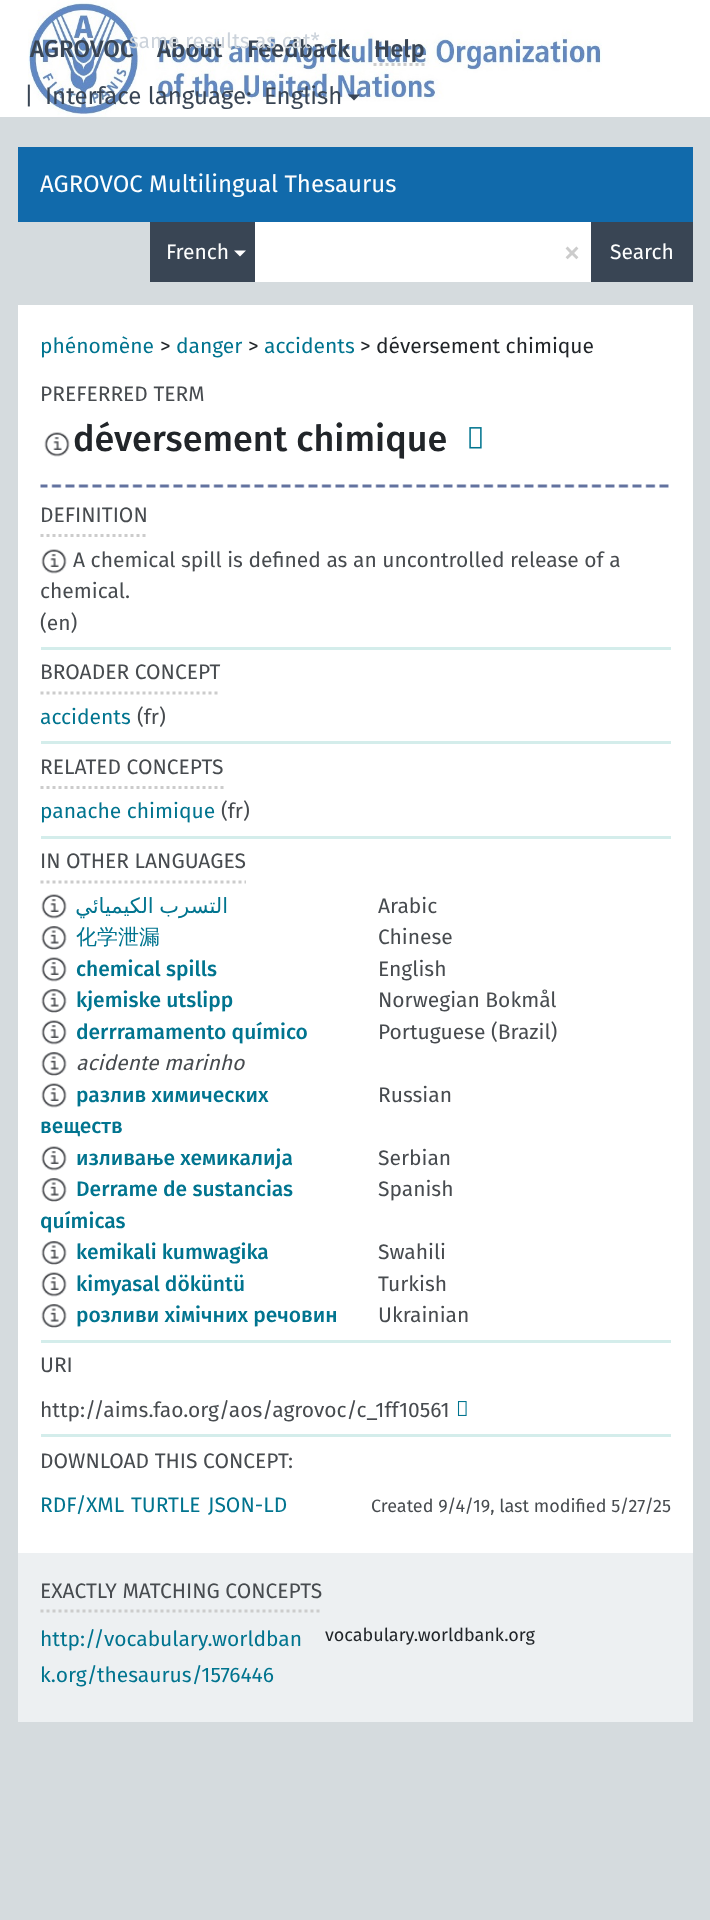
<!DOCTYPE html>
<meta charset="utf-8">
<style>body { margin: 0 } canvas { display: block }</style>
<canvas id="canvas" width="710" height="1920"></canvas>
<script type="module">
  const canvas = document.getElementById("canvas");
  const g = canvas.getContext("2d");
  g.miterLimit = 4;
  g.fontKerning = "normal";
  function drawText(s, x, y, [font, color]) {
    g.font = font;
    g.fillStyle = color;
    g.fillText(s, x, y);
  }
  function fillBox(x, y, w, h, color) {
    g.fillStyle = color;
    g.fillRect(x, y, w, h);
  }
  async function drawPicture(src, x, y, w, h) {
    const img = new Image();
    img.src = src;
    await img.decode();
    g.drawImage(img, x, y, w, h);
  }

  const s1 = ["500 24px Fira Sans", "#394554"];
  const s2 = ["21px Fira Sans", "#CCD3DB"];
  const s3 = ["24px Fira Sans", "#394554"];
  const s4 = ["24px Fira Sans", "#FDFEFE"];
  const s5 = ["21px Fira Sans", "#FDFEFE"];
  const s6 = ["36px Fira Sans", "#CCCCCC"];
  const s7 = ["21px Fira Sans", "#00748F"];
  const s8 = ["21px Fira Sans", "#212529"];
  const s9 = ["21px Fira Sans", "#474B4F"];
  const s10 = ["500 36px Fira Sans", "#212529"];
  const s11 = ["21px DejaVu Sans", "#00748F"];
  const s12 = ["500 21px WenQuanYi Zen Hei", "#00748F"];
  const s13 = ["500 21px Fira Sans", "#00748F"];
  const s14 = ["italic 21px Fira Sans", "#474B4F"];
  const s15 = ["18px Fira Sans", "#474B4F"];
  const s16 = ["18px Fira Sans", "#212529"];

  fillBox(0, 0, 710, 1920, "#D5DBDE");
  fillBox(0, 0, 710, 117, "#FFFFFF");
  await drawPicture("pic1.png", 28, 0, 574, 117);
  drawText("AGROVOC", 30, 57, s1);
  drawText("About", 157, 57, s1);
  drawText("Feedback", 247, 57, s1);
  drawText("same results as cat*.", 129, 48, s2);
  drawText("Help", 374, 57, s1);
  g.beginPath();
  g.moveTo(373.5, 64.5);
  g.lineTo(424.5, 64.5);
  g.strokeStyle = "#CCCCCC";
  g.lineWidth = 3;
  g.setLineDash([3, 3]);
  g.stroke();
  drawText("|", 24, 104, s3);
  drawText("Interface language:", 45, 104, s3);
  drawText("English", 264, 104, s3);
  g.beginPath();
  g.moveTo(348, 94.5);
  g.lineTo(360, 94.5);
  g.lineTo(354, 100.5);
  g.closePath();
  g.fill();
  fillBox(18, 147, 675, 75, "#116AAB");
  drawText("AGROVOC Multilingual Thesaurus", 40, 192, s4);
  fillBox(150, 222, 105, 60, "#394554");
  drawText("French", 166, 259, s5);
  g.fillStyle = "#FFFFFF";
  g.beginPath();
  g.moveTo(234, 250.5);
  g.lineTo(246, 250.5);
  g.lineTo(240, 256.5);
  g.closePath();
  g.fill();
  fillBox(255, 222, 336, 60, "#FFFFFF");
  drawText("×", 563, 264, s6);
  fillBox(591, 222, 102, 60, "#394554");
  drawText("Search", 610, 259, s5);
  fillBox(18, 305, 675, 1248, "#FFFFFF");
  drawText("phénomène", 40, 353, s7);
  drawText(">", 160, 353, s8);
  drawText("danger", 176, 353, s7);
  drawText(">", 248, 353, s8);
  drawText("accidents", 264, 353, s7);
  drawText("> déversement chimique", 360, 353, s8);
  drawText("PREFERRED TERM", 40, 401, s9);
  await drawPicture("pic2.png", 44, 432, 26, 25);
  drawText("déversement chimique", 73, 451, s10);
  await drawPicture("pic3.png", 469, 427, 13, 22);
  await drawPicture("pic4.png", 40, 484, 629, 4);
  g.beginPath();
  g.moveTo(40.5, 535.5);
  g.lineTo(148.5, 535.5);
  g.stroke();
  drawText("DEFINITION", 40, 522, s9);
  fillBox(41, 647, 630, 3, "#D4EDEB");
  await drawPicture("pic2.png", 41, 549, 26, 25);
  drawText("A chemical spill is defined as an uncontrolled release of a", 73, 567, s9);
  drawText("chemical.", 40, 598, s9);
  drawText("(en)", 40, 630, s9);
  g.beginPath();
  g.moveTo(40.5, 693);
  g.lineTo(220.5, 693);
  g.stroke();
  drawText("BROADER CONCEPT", 40, 679, s9);
  fillBox(41, 741, 630, 3, "#D4EDEB");
  drawText("accidents", 40, 724, s7);
  drawText("(fr)", 137, 724, s9);
  g.beginPath();
  g.moveTo(40.5, 787.5);
  g.lineTo(223.5, 787.5);
  g.stroke();
  drawText("RELATED CONCEPTS", 40, 774, s9);
  fillBox(41, 836, 630, 3, "#D4EDEB");
  drawText("panache chimique", 40, 818, s7);
  drawText("(fr)", 221, 818, s9);
  g.beginPath();
  g.moveTo(40.5, 882);
  g.lineTo(246, 882);
  g.stroke();
  drawText("IN OTHER LANGUAGES", 40, 868, s9);
  fillBox(41, 1340, 630, 3, "#D4EDEB");
  await drawPicture("pic2.png", 41, 894, 26, 25);
  g.wordSpacing = "-1px";
  g.direction = "rtl";
  drawText("التسرب الكيميائي", 228, 913, s11);
  g.wordSpacing = "0px";
  g.direction = "ltr";
  drawText("Arabic", 378, 913, s9);
  await drawPicture("pic5.png", 41, 926, 26, 24);
  drawText("化学泄漏", 76, 944, s12);
  drawText("Chinese", 378, 944, s9);
  await drawPicture("pic2.png", 41, 957, 26, 25);
  drawText("chemical spills", 76, 976, s13);
  drawText("English", 378, 976, s9);
  await drawPicture("pic5.png", 41, 989, 26, 24);
  drawText("kjemiske utslipp", 76, 1007, s13);
  drawText("Norwegian Bokmål", 378, 1007, s9);
  await drawPicture("pic2.png", 41, 1020, 26, 25);
  drawText("derrramamento químico", 76, 1039, s13);
  drawText("Portuguese (Brazil)", 378, 1039, s9);
  await drawPicture("pic6.png", 41, 1052, 26, 24);
  drawText("acidente marinho", 76, 1070, s14);
  await drawPicture("pic2.png", 41, 1083, 26, 25);
  drawText("разлив химических", 76, 1102, s13);
  drawText("веществ", 40, 1133, s13);
  drawText("Russian", 378, 1102, s9);
  await drawPicture("pic2.png", 41, 1146, 26, 25);
  drawText("изливање хемикалија", 76, 1165, s13);
  drawText("Serbian", 378, 1165, s9);
  await drawPicture("pic5.png", 41, 1178, 26, 24);
  drawText("Derrame de sustancias", 76, 1196, s13);
  drawText("químicas", 40, 1228, s13);
  drawText("Spanish", 378, 1196, s9);
  await drawPicture("pic5.png", 41, 1241, 26, 24);
  drawText("kemikali kumwagika", 76, 1259, s13);
  drawText("Swahili", 378, 1259, s9);
  await drawPicture("pic2.png", 41, 1272, 26, 25);
  drawText("kimyasal döküntü", 76, 1291, s13);
  drawText("Turkish", 378, 1291, s9);
  await drawPicture("pic6.png", 41, 1304, 26, 24);
  drawText("розливи хімічних речовин", 76, 1322, s13);
  drawText("Ukrainian", 378, 1322, s9);
  drawText("URI", 40, 1372, s9);
  fillBox(41, 1434, 630, 3, "#D4EDEB");
  drawText("http://aims.fao.org/aos/agrovoc/c_1ff10561", 40, 1417, s9);
  await drawPicture("pic7.png", 457, 1401, 10, 15);
  drawText("DOWNLOAD THIS CONCEPT:", 40, 1468, s9);
  drawText("RDF/XML", 40, 1512, s7);
  drawText("TURTLE", 131, 1512, s7);
  drawText("JSON-LD", 208, 1512, s7);
  drawText("Created 9/4/19, last modified 5/27/25", 371, 1512, s15);
  fillBox(18, 1553, 675, 169, "#EDF0F2");
  g.beginPath();
  g.moveTo(40.5, 1611);
  g.lineTo(322.5, 1611);
  g.stroke();
  drawText("EXACTLY MATCHING CONCEPTS", 40, 1598, s9);
  drawText("http://vocabulary.worldban", 40, 1646, s7);
  drawText("k.org/thesaurus/1576446", 40, 1682, s7);
  drawText("vocabulary.worldbank.org", 325, 1641, s16);
</script>
